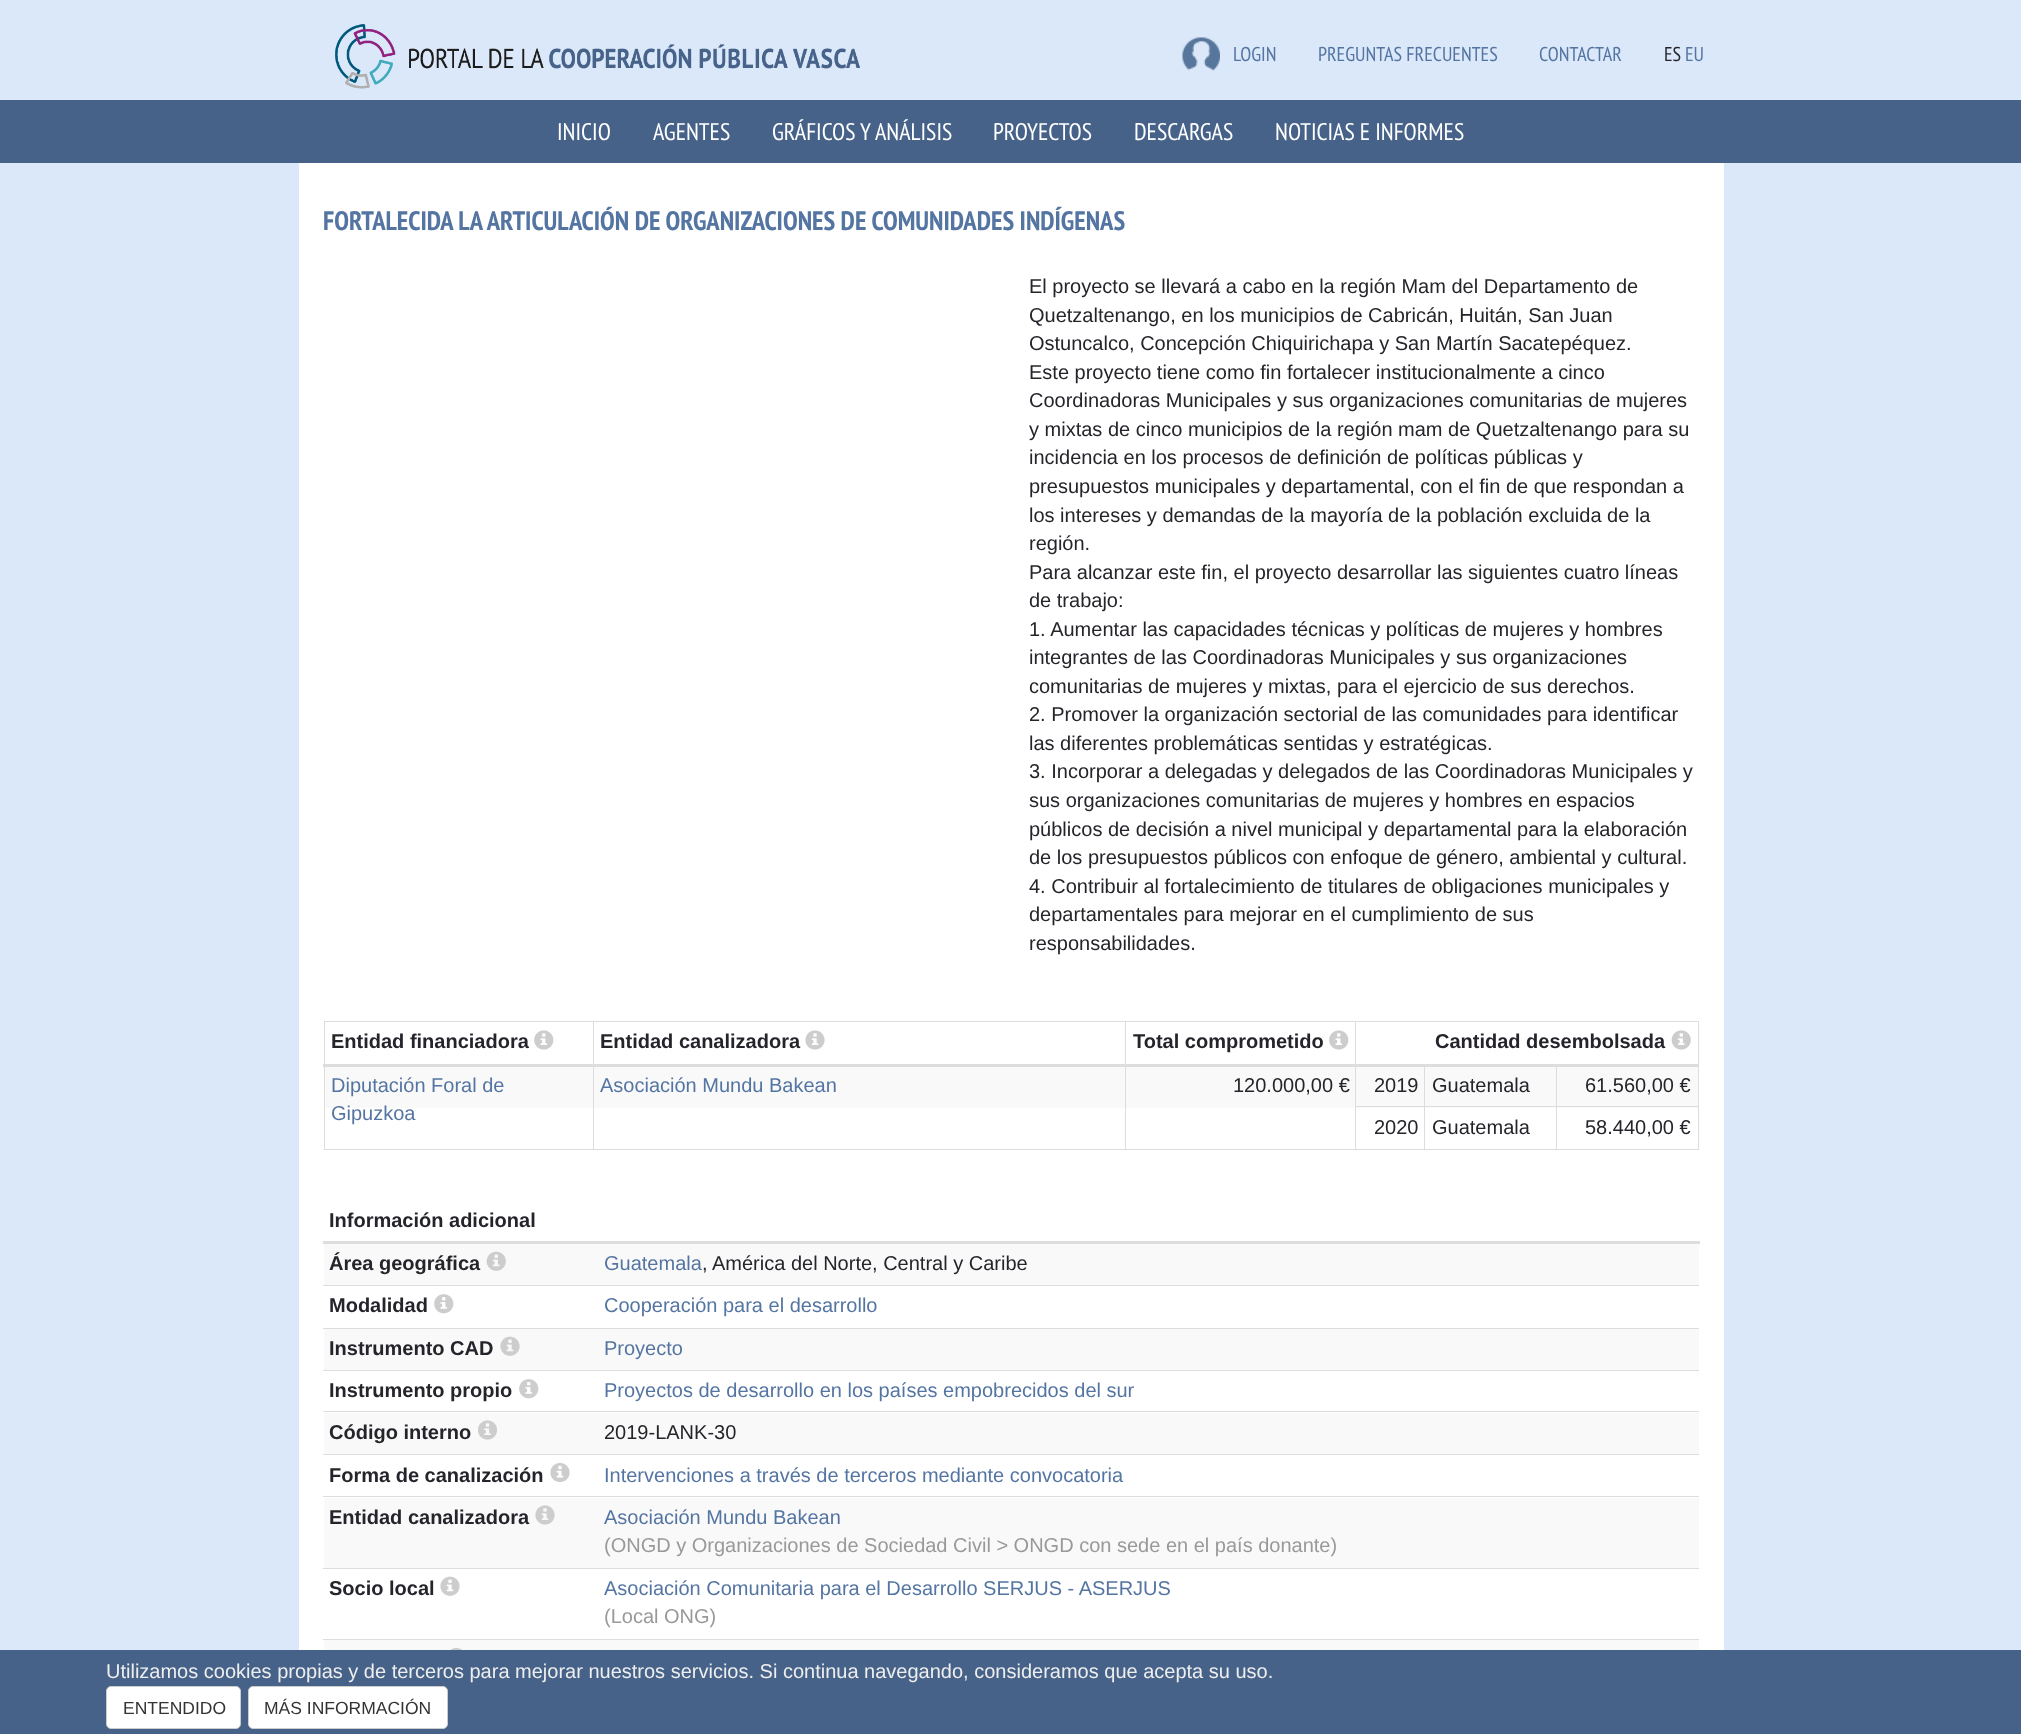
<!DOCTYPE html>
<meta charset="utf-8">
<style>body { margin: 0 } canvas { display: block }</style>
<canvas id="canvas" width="2021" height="1734"></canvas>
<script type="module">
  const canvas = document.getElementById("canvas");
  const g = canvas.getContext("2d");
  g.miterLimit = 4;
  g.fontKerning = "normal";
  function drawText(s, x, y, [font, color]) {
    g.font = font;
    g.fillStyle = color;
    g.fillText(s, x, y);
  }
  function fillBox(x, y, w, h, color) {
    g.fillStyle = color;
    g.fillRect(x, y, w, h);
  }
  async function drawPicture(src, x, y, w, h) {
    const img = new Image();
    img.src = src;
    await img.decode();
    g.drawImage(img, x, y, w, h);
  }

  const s1 = ["20px PT Sans Narrow", "#5475A2"];
  const s2 = ["20px PT Sans Narrow", "#24242A"];
  const s3 = ["24px PT Sans Narrow", "#FFFFFF"];
  const s4 = ["bold 26.65px PT Sans Narrow", "#5475A2"];
  const s5 = ["20px Liberation Sans", "#24242A"];
  const s6 = ["bold 20px Liberation Sans", "#24242A"];
  const s7 = ["20px Liberation Sans", "#5475A2"];
  const s8 = ["20px Liberation Sans", "#999999"];
  const s9 = ["20px Liberation Sans", "#EEEEEE"];
  const s10 = ["17.5px Liberation Sans", "#333333"];

  fillBox(0, 0, 2021, 1734, "#DBE8F9");
  await drawPicture("pic1.png", 335, 24, 525, 65);
  await drawPicture("pic2.png", 1182, 37, 38, 34);
  drawText("LOGIN", 1233, 61, s1);
  drawText("PREGUNTAS FRECUENTES", 1318, 61, s1);
  drawText("CONTACTAR", 1539, 61, s1);
  drawText("ES", 1664, 61, s2);
  drawText("EU", 1685, 61, s1);
  fillBox(0, 100, 2021, 63, "#466289");
  drawText("INICIO", 557, 140, s3);
  drawText("AGENTES", 653, 140, s3);
  drawText("GRÁFICOS Y ANÁLISIS", 772, 140, s3);
  drawText("PROYECTOS", 993, 140, s3);
  drawText("DESCARGAS", 1134, 140, s3);
  drawText("NOTICIAS E INFORMES", 1275, 140, s3);
  fillBox(299, 163, 1425, 1487, "#FFFFFF");
  drawText("FORTALECIDA LA ARTICULACIÓN DE ORGANIZACIONES DE COMUNIDADES INDÍGENAS", 323, 230, s4);
  drawText("El proyecto se llevará a cabo en la región Mam del Departamento de", 1029, 293, s5);
  drawText("Quetzaltenango, en los municipios de Cabricán, Huitán, San Juan", 1029, 322, s5);
  drawText("Ostuncalco, Concepción Chiquirichapa y San Martín Sacatepéquez.", 1029, 350, s5);
  drawText("Este proyecto tiene como fin fortalecer institucionalmente a cinco", 1029, 379, s5);
  drawText("Coordinadoras Municipales y sus organizaciones comunitarias de mujeres", 1029, 407, s5);
  drawText("y mixtas de cinco municipios de la región mam de Quetzaltenango para su", 1029, 436, s5);
  drawText("incidencia en los procesos de definición de políticas públicas y", 1029, 464, s5);
  drawText("presupuestos municipales y departamental, con el fin de que respondan a", 1029, 493, s5);
  drawText("los intereses y demandas de la mayoría de la población excluida de la", 1029, 522, s5);
  drawText("región.", 1029, 550, s5);
  drawText("Para alcanzar este fin, el proyecto desarrollar las siguientes cuatro líneas", 1029, 579, s5);
  drawText("de trabajo:", 1029, 607, s5);
  drawText("1. Aumentar las capacidades técnicas y políticas de mujeres y hombres", 1029, 636, s5);
  drawText("integrantes de las Coordinadoras Municipales y sus organizaciones", 1029, 664, s5);
  drawText("comunitarias de mujeres y mixtas, para el ejercicio de sus derechos.", 1029, 693, s5);
  drawText("2. Promover la organización sectorial de las comunidades para identificar", 1029, 721, s5);
  drawText("las diferentes problemáticas sentidas y estratégicas.", 1029, 750, s5);
  drawText("3. Incorporar a delegadas y delegados de las Coordinadoras Municipales y", 1029, 778, s5);
  drawText("sus organizaciones comunitarias de mujeres y hombres en espacios", 1029, 807, s5);
  drawText("públicos de decisión a nivel municipal y departamental para la elaboración", 1029, 836, s5);
  drawText("de los presupuestos públicos con enfoque de género, ambiental y cultural.", 1029, 864, s5);
  drawText("4. Contribuir al fortalecimiento de titulares de obligaciones municipales y", 1029, 893, s5);
  drawText("departamentales para mejorar en el cumplimiento de sus", 1029, 921, s5);
  drawText("responsabilidades.", 1029, 950, s5);
  fillBox(324, 1021, 1375, 1, "#DDDDDD");
  fillBox(1698, 1021, 1, 129, "#DDDDDD");
  fillBox(324, 1149, 1375, 1, "#DDDDDD");
  fillBox(324, 1021, 1, 129, "#DDDDDD");
  drawText("Entidad financiadora", 331, 1048, s6);
  await drawPicture("pic3.png", 534, 1030, 20, 20);
  drawText("Entidad canalizadora", 600, 1048, s6);
  await drawPicture("pic4.png", 805, 1030, 20, 20);
  drawText("Total comprometido", 1133, 1048, s6);
  await drawPicture("pic3.png", 1329, 1030, 20, 20);
  fillBox(325, 1067, 1373, 41, "#F9F9F9");
  fillBox(593, 1021, 1, 129, "#DDDDDD");
  fillBox(1125, 1021, 1, 129, "#DDDDDD");
  fillBox(1556, 1106, 143, 1, "#DDDDDD");
  fillBox(1556, 1106, 1, 44, "#DDDDDD");
  fillBox(1424, 1106, 134, 1, "#DDDDDD");
  fillBox(1424, 1106, 1, 44, "#DDDDDD");
  fillBox(1355, 1106, 70, 1, "#DDDDDD");
  fillBox(1424, 1064, 1, 44, "#DDDDDD");
  fillBox(1556, 1064, 1, 44, "#DDDDDD");
  fillBox(1355, 1021, 1, 129, "#DDDDDD");
  fillBox(323, 1064, 1376, 3, "#DDDDDD");
  drawText("Cantidad desembolsada", 1435, 1048, s6);
  await drawPicture("pic5.png", 1671, 1030, 20, 20);
  drawText("Diputación Foral de", 331, 1092, s7);
  drawText("Gipuzkoa", 331, 1120, s7);
  drawText("Asociación Mundu Bakean", 600, 1092, s7);
  drawText("120.000,00 €", 1233, 1092, s5);
  drawText("2019", 1374, 1092, s5);
  drawText("Guatemala", 1432, 1092, s5);
  drawText("61.560,00 €", 1585, 1092, s5);
  drawText("2020", 1374, 1134, s5);
  drawText("Guatemala", 1432, 1134, s5);
  drawText("58.440,00 €", 1585, 1134, s5);
  fillBox(323, 1241, 1377, 3, "#DDDDDD");
  drawText("Información adicional", 329, 1227, s6);
  fillBox(324, 1244, 1375, 41, "#F9F9F9");
  drawText("Área geográfica", 329, 1270, s6);
  await drawPicture("pic6.png", 486, 1251, 20, 20);
  drawText("Guatemala", 604, 1270, s7);
  drawText(",", 702, 1270, s5);
  drawText("América del Norte, Central y Caribe", 712, 1270, s5);
  drawText("Modalidad", 329, 1312, s6);
  await drawPicture("pic7.png", 434, 1294, 20, 20);
  fillBox(323, 1285, 1376, 1, "#DDDDDD");
  drawText("Cooperación para el desarrollo", 604, 1312, s7);
  fillBox(324, 1329, 1375, 41, "#F9F9F9");
  drawText("Instrumento CAD", 329, 1355, s6);
  await drawPicture("pic8.png", 500, 1336, 20, 20);
  fillBox(323, 1328, 1376, 1, "#DDDDDD");
  drawText("Proyecto", 604, 1355, s7);
  drawText("Instrumento propio", 329, 1397, s6);
  await drawPicture("pic7.png", 519, 1379, 20, 20);
  fillBox(323, 1370, 1376, 1, "#DDDDDD");
  drawText("Proyectos de desarrollo en los países empobrecidos del sur", 604, 1397, s7);
  fillBox(324, 1413, 1375, 41, "#F9F9F9");
  drawText("Código interno", 329, 1439, s6);
  await drawPicture("pic9.png", 478, 1420, 19, 20);
  fillBox(323, 1411, 1376, 1, "#DDDDDD");
  drawText("2019-LANK-30", 604, 1439, s5);
  drawText("Forma de canalización", 329, 1482, s6);
  await drawPicture("pic10.png", 550, 1463, 20, 19);
  fillBox(323, 1454, 1376, 1, "#DDDDDD");
  drawText("Intervenciones a través de terceros mediante convocatoria", 604, 1482, s7);
  fillBox(324, 1498, 1375, 70, "#F9F9F9");
  drawText("Entidad canalizadora", 329, 1524, s6);
  await drawPicture("pic11.png", 535, 1505, 20, 20);
  fillBox(323, 1496, 1376, 1, "#DDDDDD");
  drawText("Asociación Mundu Bakean", 604, 1524, s7);
  drawText("(ONGD y Organizaciones de Sociedad Civil > ONGD con sede en el país donante)", 604, 1552, s8);
  drawText("Socio local", 329, 1595, s6);
  await drawPicture("pic12.png", 440, 1576, 20, 20);
  fillBox(323, 1568, 1376, 1, "#DDDDDD");
  drawText("Asociación Comunitaria para el Desarrollo SERJUS - ASERJUS", 604, 1595, s7);
  drawText("(Local ONG)", 604, 1623, s8);
  fillBox(324, 1640, 1375, 10, "#F9F9F9");
  fillBox(323, 1639, 1376, 1, "#DDDDDD");
  await drawPicture("pic13.png", 450, 1648, 12, 2);
  fillBox(0, 1650, 2021, 84, "#466289");
  drawText("Utilizamos cookies propias y de terceros para mejorar nuestros servicios. Si continua navegando, consideramos que acepta su uso.", 106, 1678, s9);
  g.fillStyle = "#FFFFFF";
  g.beginPath();
  g.roundRect(106.5, 1686.5, 134, 42, 4.5);
  g.fill();
  g.strokeStyle = "#CCCCCC";
  g.stroke();
  drawText("ENTENDIDO", 123, 1714, s10);
  g.fillStyle = "#FFFFFF";
  g.beginPath();
  g.roundRect(248.5, 1686.5, 199, 42, 4.5);
  g.fill();
  g.stroke();
  drawText("MÁS INFORMACIÓN", 264, 1714, s10);
</script>
